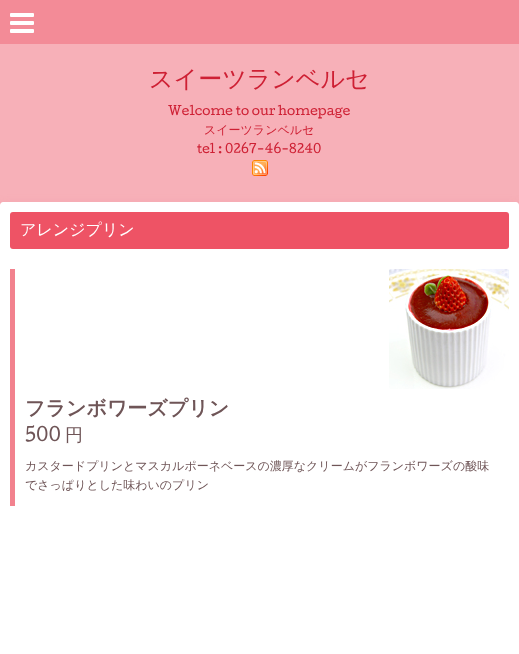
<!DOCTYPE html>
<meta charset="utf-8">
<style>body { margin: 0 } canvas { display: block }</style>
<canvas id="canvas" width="519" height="654"></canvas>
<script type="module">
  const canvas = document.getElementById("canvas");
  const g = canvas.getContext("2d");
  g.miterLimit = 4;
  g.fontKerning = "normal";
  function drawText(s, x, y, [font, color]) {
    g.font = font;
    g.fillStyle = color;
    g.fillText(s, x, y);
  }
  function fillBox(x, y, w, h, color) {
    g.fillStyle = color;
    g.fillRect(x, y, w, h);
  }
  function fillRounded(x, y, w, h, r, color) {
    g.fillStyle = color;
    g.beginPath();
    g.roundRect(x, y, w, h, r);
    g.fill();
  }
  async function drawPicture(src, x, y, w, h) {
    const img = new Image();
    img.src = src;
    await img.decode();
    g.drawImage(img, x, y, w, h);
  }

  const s1 = ["500 24px WenQuanYi Zen Hei", "#CE2034"];
  const s2 = ["12px Cutive", "#CE2034"];
  const s3 = ["500 12px WenQuanYi Zen Hei", "#CE2034"];
  const s4 = ["500 16px WenQuanYi Zen Hei", "#FFFFFF"];
  const s5 = ["bold 20px WenQuanYi Zen Hei", "#6F5557"];
  const s6 = ["18px Cutive", "#6F5557"];
  const s7 = ["500 18px WenQuanYi Zen Hei", "#6F5557"];
  const s8 = ["500 12px WenQuanYi Zen Hei", "#6F5557"];

  fillBox(0, 0, 519, 654, "#F7B0B8");
  fillBox(0, 0, 519, 44, "#F38B97");
  await drawPicture("pic1.png", 10, 13, 24, 20);
  drawText("スイーツランベルセ", 149, 87, s1);
  drawText("Welcome to our homepage", 168, 115, s2);
  drawText("スイーツランベルセ", 204, 134, s3);
  drawText("tel : 0267-46-8240", 197, 153, s2);
  await drawPicture("pic2.png", 252, 160, 16, 16);
  g.fillStyle = "rgba(243, 139, 151, 0.4)";
  g.filter = "blur(5px)";
  g.beginPath();
  g.roundRect(0, 205, 519, 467, 3);
  g.fill();
  g.filter = "none";
  g.fillStyle = "#FFFFFF";
  g.beginPath();
  g.moveTo(3, 202);
  g.lineTo(516, 202);
  g.bezierCurveTo(517.5, 202, 519, 203.5, 519, 205);
  g.lineTo(519, 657);
  g.lineTo(0, 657);
  g.lineTo(0, 205);
  g.bezierCurveTo(0, 203.5, 1.5, 202, 3, 202);
  g.closePath();
  g.fill();
  fillRounded(10, 212, 499, 37, 3, "#EE5365");
  drawText("アレンジプリン", 20, 235, s4);
  fillBox(10, 269, 5, 237, "#F2828E");
  await drawPicture("pic3.png", 389, 269, 120, 120);
  drawText("フランボワーズプリン", 25, 415, s5);
  drawText("500", 25, 441, s6);
  drawText("円", 65, 441, s7);
  drawText("カスタードプリンとマスカルポーネベースの濃厚なクリームがフランボワーズの酸味", 25, 470, s8);
  drawText("でさっぱりとした味わいのプリン", 25, 489, s8);
</script>
